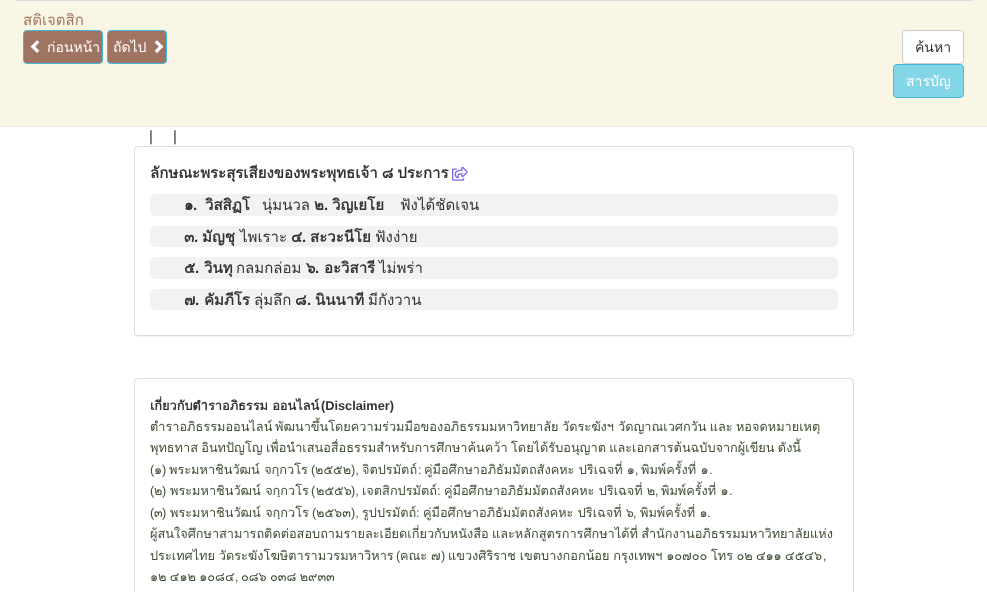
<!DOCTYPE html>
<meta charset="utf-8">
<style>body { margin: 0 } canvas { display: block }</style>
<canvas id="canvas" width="987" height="592"></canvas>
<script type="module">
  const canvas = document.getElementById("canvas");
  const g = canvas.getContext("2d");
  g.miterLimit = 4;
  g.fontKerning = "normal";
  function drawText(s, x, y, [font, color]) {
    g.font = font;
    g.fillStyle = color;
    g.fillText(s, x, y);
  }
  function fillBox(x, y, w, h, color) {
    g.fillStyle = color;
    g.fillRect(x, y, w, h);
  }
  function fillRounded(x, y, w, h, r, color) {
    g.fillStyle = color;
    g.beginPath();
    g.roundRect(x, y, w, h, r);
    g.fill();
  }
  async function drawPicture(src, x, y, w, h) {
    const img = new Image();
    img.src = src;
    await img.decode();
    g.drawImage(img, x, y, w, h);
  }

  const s1 = ["15px Loma", "#A07462"];
  const s2 = ["14px Loma", "#FFFFFF"];
  const s3 = ["14px Loma", "#333333"];
  const s4 = ["15px Liberation Sans", "#333333"];
  const s5 = ["bold 15px Loma", "#333333"];
  const s6 = ["bold 15px Liberation Sans", "#333333"];
  const s7 = ["15px Loma", "#333333"];
  const s8 = ["bold 12.75px Loma", "#333333"];
  const s9 = ["bold 12.75px Liberation Sans", "#333333"];
  const s10 = ["12.75px Loma", "#415037"];
  const s11 = ["12.75px Liberation Sans", "#415037"];

  fillBox(0, 0, 987, 592, "#FFFFFF");
  fillBox(0, 0, 987, 126, "#F9F6E5");
  fillBox(0, 126, 987, 1, "#E7E7E7");
  drawText("สติเจตสิก", 23, 25, s1);
  g.beginPath();
  g.roundRect(23.5, 30.5, 79, 33, 3.5);
  g.fill();
  g.strokeStyle = "#46B8DA";
  g.stroke();
  await drawPicture("pic1.png", 30, 40, 10, 13);
  drawText("ก่อนหน้า", 47, 52, s2);
  g.fillStyle = "#A07462";
  g.beginPath();
  g.roundRect(107.5, 30.5, 59, 33, 3.5);
  g.fill();
  g.stroke();
  drawText("ถัดไป", 113, 52, s2);
  await drawPicture("pic2.png", 154, 40, 10, 13);
  fillBox(15, 0, 958, 1, "#DDDDDD");
  g.fillStyle = "#FFFFFF";
  g.beginPath();
  g.roundRect(902.5, 30.5, 61, 33, 3.5);
  g.fill();
  g.strokeStyle = "#CCCCCC";
  g.stroke();
  drawText("ค้นหา", 915, 52, s3);
  g.fillStyle = "#83D6E7";
  g.beginPath();
  g.roundRect(893.5, 64.5, 70, 33, 3.5);
  g.fill();
  g.strokeStyle = "#46B8DA";
  g.stroke();
  drawText("สารบัญ", 906, 86, s2);
  g.fillStyle = "rgba(0, 0, 0, 0.05)";
  g.filter = "blur(0.5px)";
  g.beginPath();
  g.roundRect(134, 147, 720, 190, 4);
  g.fill();
  g.filter = "none";
  drawText("|", 149, 141, s4);
  drawText("|", 173, 141, s4);
  g.fillStyle = "#FFFFFF";
  g.beginPath();
  g.roundRect(134.5, 146.5, 719, 189, 3.5);
  g.fill();
  g.strokeStyle = "#DDDDDD";
  g.stroke();
  g.wordSpacing = "-1px";
  drawText("ลักษณะพระสุรเสียงของพระพุทธเจ้า ๘ ประการ", 150, 178, s5);
  await drawPicture("pic3.png", 452, 166, 16, 15);
  fillRounded(150, 194, 688, 22, 5, "#F2F2F2");
  g.wordSpacing = "0px";
  drawText("๑", 184, 210, s5);
  drawText(".", 193, 210, s6);
  drawText("วิสสิฏโ", 205, 210, s5);
  drawText("นุ่มนวล", 262, 210, s7);
  drawText("๒", 314, 210, s5);
  drawText(".", 324, 210, s6);
  drawText("วิญเยโย", 332, 210, s5);
  drawText("ฟังได้ชัดเจน", 400, 210, s7);
  fillRounded(150, 226, 688, 21, 5, "#F2F2F2");
  drawText("๓", 184, 242, s5);
  drawText(".", 194, 242, s6);
  drawText("มัญชุ", 202, 242, s5);
  drawText("ไพเราะ", 240, 242, s7);
  drawText("๔", 291, 242, s5);
  drawText("สะวะนีโย", 310, 242, s5);
  drawText("ฟังง่าย", 375, 242, s7);
  drawText(".", 302, 242, s6);
  fillRounded(150, 257, 688, 22, 5, "#F2F2F2");
  drawText("๕", 184, 273, s5);
  drawText(".", 195, 273, s6);
  drawText("วินทุ", 204, 273, s5);
  drawText("กลมกล่อม", 236, 273, s7);
  drawText("๖", 306, 273, s5);
  drawText("อะวิสารี", 324, 273, s5);
  drawText("ไม่พร่า", 379, 273, s7);
  drawText(".", 315, 273, s6);
  fillRounded(150, 289, 688, 21, 5, "#F2F2F2");
  drawText("๗", 184, 305, s5);
  drawText(".", 195, 305, s6);
  drawText("คัมภีโร", 204, 305, s5);
  drawText("ลุ่มลึก", 254, 305, s7);
  drawText("๘", 295, 305, s5);
  drawText(".", 307, 305, s6);
  drawText("นินนาที", 315, 305, s5);
  drawText("มีกังวาน", 368, 305, s7);
  g.beginPath();
  g.roundRect(134.5, 378.5, 719, 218, 3.5);
  g.stroke();
  drawText("เกี่ยวกับตำราอภิธรรม ออนไลน์", 150, 410, s8);
  drawText("(Disclaimer)", 321, 410, s9);
  drawText("ตำราอภิธรรมออนไลน์", 150, 431, s10);
  drawText("พัฒนาขึ้นโดยความร่วมมือของอภิธรรมมหาวิทยาลัย", 275, 431, s10);
  drawText("วัดระฆังฯ", 562, 431, s10);
  g.wordSpacing = "-1px";
  drawText("วัดญาณเวศกวัน และ หอจดหมายเหตุ", 618, 431, s10);
  drawText("พุทธทาส อินทปัญโญ", 150, 452, s10);
  g.wordSpacing = "0px";
  drawText("เพื่อนำเสนอสื่อธรรมสำหรับการศึกษาค้นคว้า", 266, 452, s10);
  g.wordSpacing = "-1px";
  drawText("โดยได้รับอนุญาต และเอกสารต้นฉบับจากผู้เขียน ดังนี้", 511, 452, s10);
  g.wordSpacing = "0px";
  drawText("(", 150, 474, s11);
  drawText(")", 162, 474, s11);
  drawText("พระมหาชินวัฒน์ จกฺกวโร", 169, 474, s10);
  drawText("(", 311, 474, s11);
  drawText("๒๕๕๒", 315, 474, s10);
  drawText("),", 351, 474, s11);
  drawText("จิตปรมัตถ์", 362, 474, s10);
  drawText(":", 418, 474, s11);
  drawText("คู่มือศึกษาอภิธัมมัตถสังคหะ ปริเฉจที่ ๑", 424, 474, s10);
  drawText(",", 635, 474, s11);
  drawText("พิมพ์ครั้งที่ ๑", 641, 474, s10);
  drawText("๑", 154, 474, s10);
  drawText(".", 709, 474, s11);
  drawText("(", 150, 495, s11);
  drawText("๒", 154, 495, s10);
  drawText(")", 162, 495, s11);
  drawText("พระมหาชินวัฒน์ จกฺกวโร", 170, 495, s10);
  drawText("(", 311, 495, s11);
  drawText("๒๕๕๖", 316, 495, s10);
  drawText("),", 351, 495, s11);
  drawText("เจตสิกปรมัตถ์", 362, 495, s10);
  drawText(":", 437, 495, s11);
  drawText("คู่มือศึกษาอภิธัมมัตถสังคหะ ปริเฉจที่ ๒", 444, 495, s10);
  drawText(",", 655, 495, s11);
  drawText("พิมพ์ครั้งที่ ๑", 661, 495, s10);
  drawText(".", 729, 495, s11);
  drawText("(", 150, 517, s11);
  drawText(")", 162, 517, s11);
  drawText("พระมหาชินวัฒน์ จกฺกวโร", 170, 517, s10);
  drawText("(", 312, 517, s11);
  drawText("๒๕๖๓", 316, 517, s10);
  drawText("),", 351, 517, s11);
  drawText("รูปปรมัตถ์", 362, 517, s10);
  drawText(":", 416, 517, s11);
  drawText("คู่มือศึกษาอภิธัมมัตถสังคหะ ปริเฉจที่ ๖", 423, 517, s10);
  drawText(",", 633, 517, s11);
  drawText("พิมพ์ครั้งที่ ๑", 640, 517, s10);
  drawText("๓", 154, 517, s10);
  drawText(".", 707, 517, s11);
  g.wordSpacing = "-1px";
  drawText("ผู้สนใจศึกษาสามารถติดต่อสอบถามรายละเอียดเกี่ยวกับหนังสือ และหลักสูตรการศึกษาได้ที่ สำนักงานอภิธรรมมหาวิทยาลัยแห่ง", 150, 538, s10);
  g.wordSpacing = "-0.5px";
  drawText("ประเทศไทย วัดระฆังโฆษิตารามวรมหาวิหาร", 150, 560, s10);
  g.wordSpacing = "0px";
  drawText("(", 396, 560, s11);
  g.wordSpacing = "-0.5px";
  drawText("คณะ ๗", 400, 560, s10);
  g.wordSpacing = "0px";
  drawText(")", 441, 560, s11);
  g.wordSpacing = "-0.5px";
  drawText("แขวงศิริราช เขตบางกอกน้อย กรุงเทพฯ ๑๐๗๐๐", 448, 560, s10);
  g.wordSpacing = "-1px";
  drawText("โทร ๐๒ ๔๑๑ ๔๕๔๖", 711, 560, s10);
  g.wordSpacing = "0px";
  drawText(",", 823, 560, s11);
  g.wordSpacing = "-1px";
  drawText("๑๒ ๔๑๒ ๑๐๘๔", 150, 581, s10);
  g.wordSpacing = "0px";
  drawText(",", 235, 581, s11);
  g.wordSpacing = "-1px";
  drawText("๐๘๖ ๐๓๘ ๒๙๓๓", 241, 581, s10);
</script>
